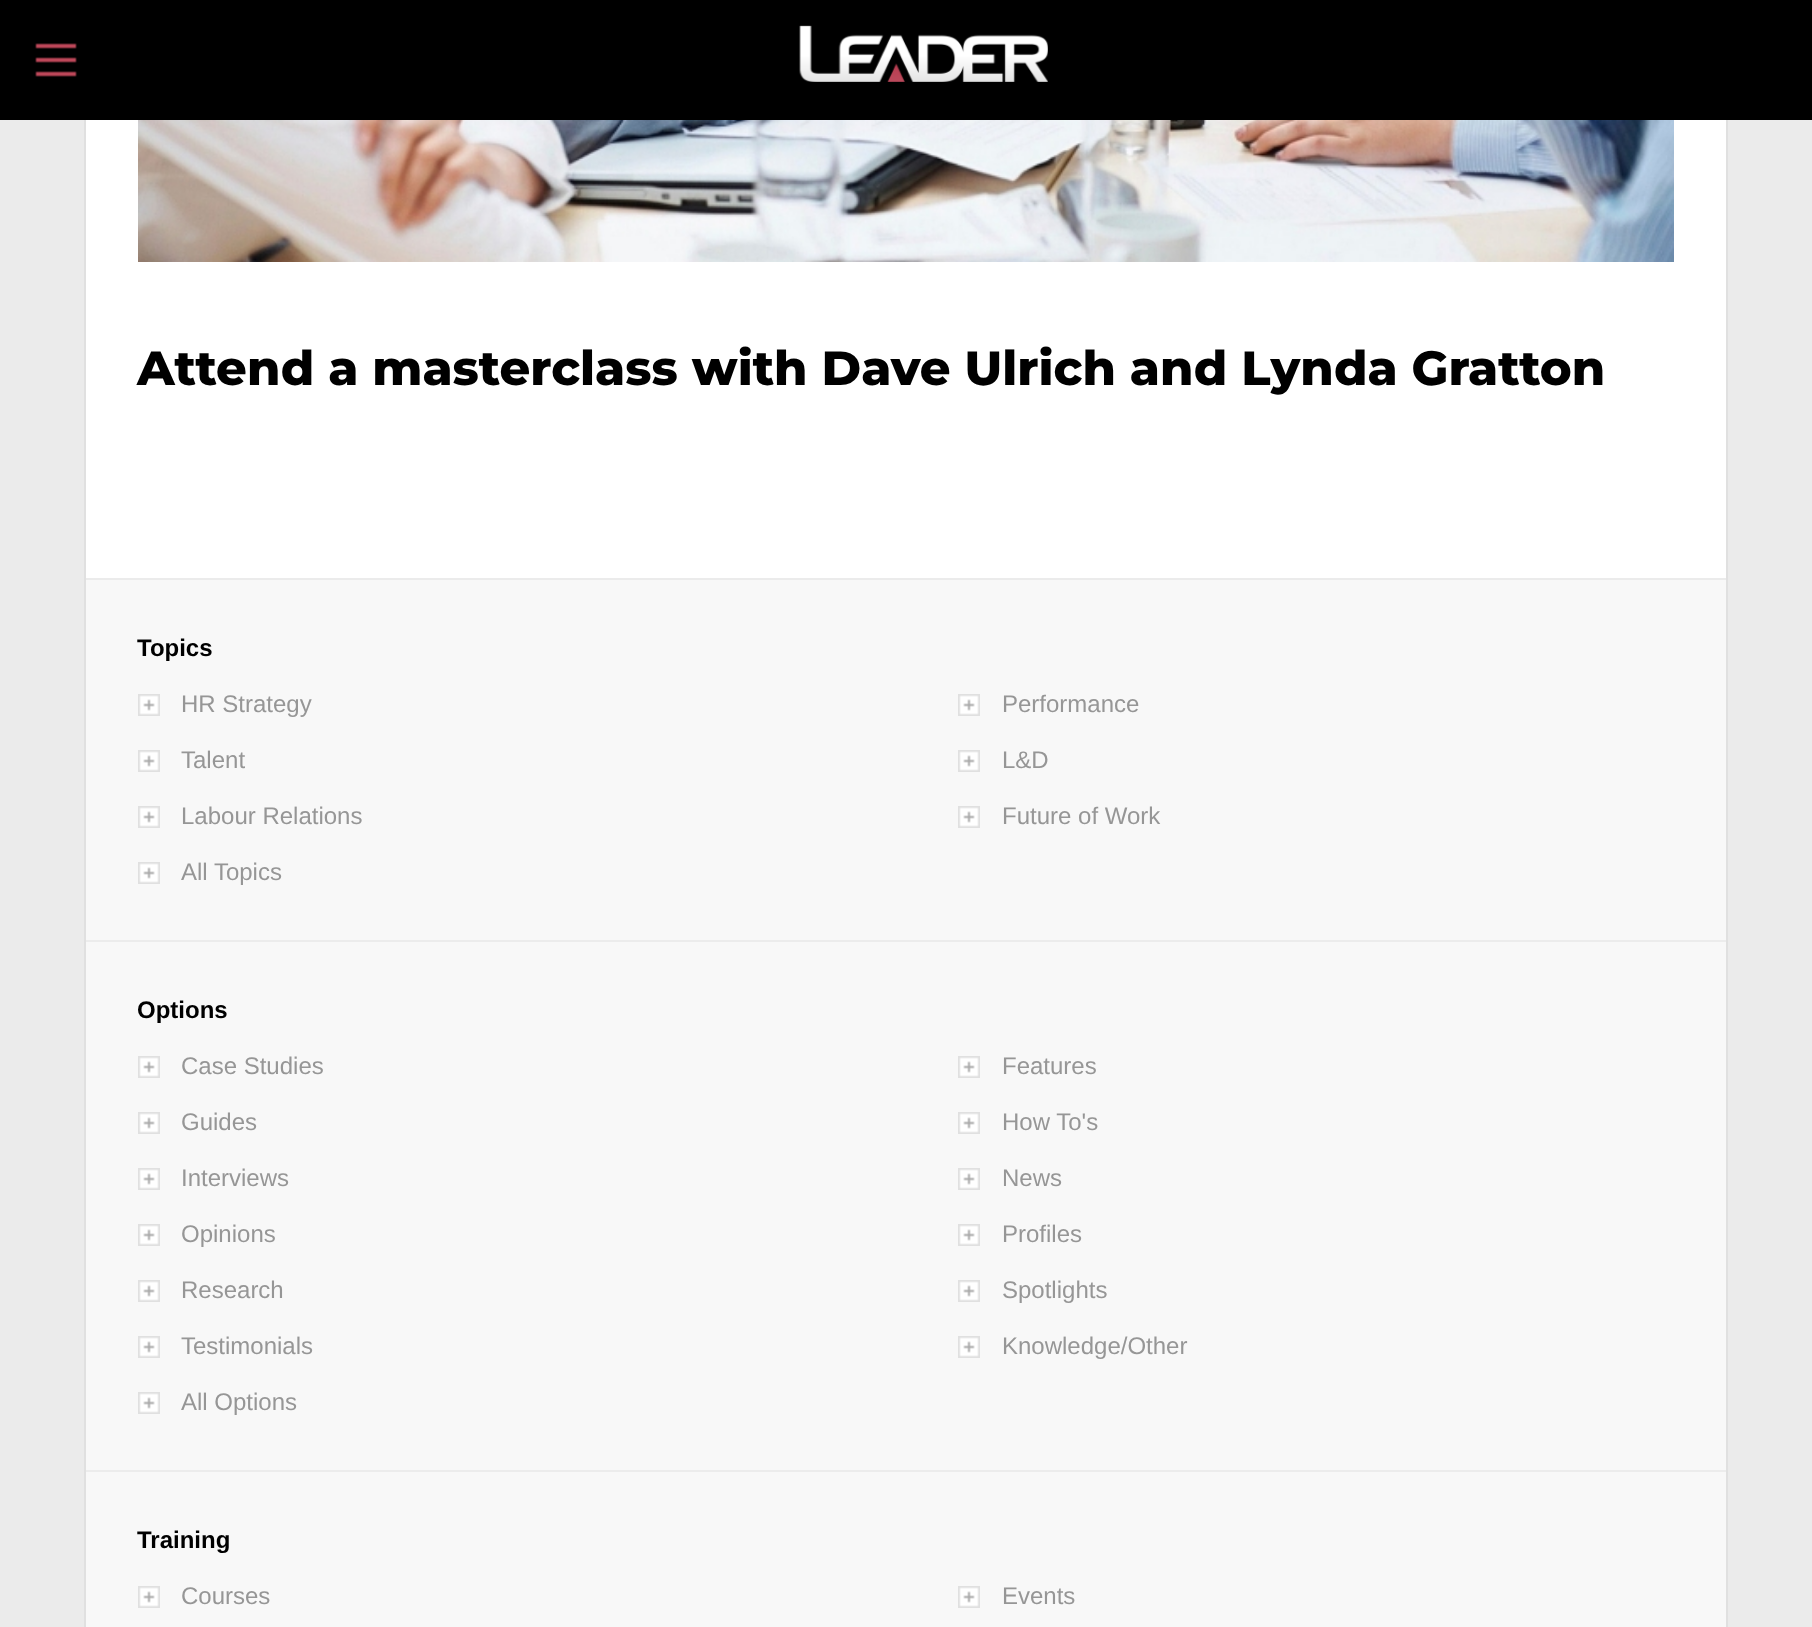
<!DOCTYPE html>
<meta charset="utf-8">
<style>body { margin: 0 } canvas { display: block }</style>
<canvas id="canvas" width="1812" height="1627"></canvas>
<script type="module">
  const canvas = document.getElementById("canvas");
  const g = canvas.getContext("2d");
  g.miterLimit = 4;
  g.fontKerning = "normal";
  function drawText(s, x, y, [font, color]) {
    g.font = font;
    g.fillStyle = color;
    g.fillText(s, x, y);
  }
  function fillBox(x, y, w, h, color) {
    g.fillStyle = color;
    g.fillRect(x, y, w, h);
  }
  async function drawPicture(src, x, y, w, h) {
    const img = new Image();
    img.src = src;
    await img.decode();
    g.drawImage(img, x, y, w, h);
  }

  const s1 = ["800 48px Montserrat", "#000000"];
  const s2 = ["bold 24px Liberation Sans", "#000000"];
  const s3 = ["24px Liberation Sans", "#969696"];

  fillBox(0, 0, 1812, 1627, "#EBEBEB");
  g.strokeStyle = "#E0E0E0";
  g.lineWidth = 2;
  g.strokeRect(85, -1, 1642, 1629);
  fillBox(0, 0, 1812, 120, "#000000");
  await drawPicture("pic1.png", 35, 43, 42, 34);
  await drawPicture("pic2.png", 799, 25, 249, 57);
  fillBox(86, 120, 1640, 458, "#FFFFFF");
  await drawPicture("pic3.png", 138, 120, 1536, 142);
  drawText("Attend a masterclass with Dave Ulrich and Lynda Gratton", 137, 385, s1);
  fillBox(86, 580, 1640, 1047, "#F8F8F8");
  drawText("Topics", 137, 656, s2);
  await drawPicture("pic4.png", 138, 694, 22, 22);
  drawText("HR Strategy", 181, 712, s3);
  await drawPicture("pic4.png", 958, 694, 22, 22);
  drawText("Performance", 1002, 712, s3);
  await drawPicture("pic4.png", 138, 750, 22, 22);
  drawText("Talent", 181, 768, s3);
  await drawPicture("pic4.png", 958, 750, 22, 22);
  drawText("L&D", 1002, 768, s3);
  await drawPicture("pic4.png", 138, 806, 22, 22);
  drawText("Labour Relations", 181, 824, s3);
  await drawPicture("pic4.png", 958, 806, 22, 22);
  drawText("Future of Work", 1002, 824, s3);
  await drawPicture("pic4.png", 138, 862, 22, 22);
  drawText("All Topics", 181, 880, s3);
  fillBox(86, 940, 1640, 2, "#ECECEC");
  drawText("Options", 137, 1018, s2);
  await drawPicture("pic4.png", 138, 1056, 22, 22);
  drawText("Case Studies", 181, 1074, s3);
  await drawPicture("pic4.png", 958, 1056, 22, 22);
  drawText("Features", 1002, 1074, s3);
  await drawPicture("pic4.png", 138, 1112, 22, 22);
  drawText("Guides", 181, 1130, s3);
  await drawPicture("pic4.png", 958, 1112, 22, 22);
  drawText("How To's", 1002, 1130, s3);
  await drawPicture("pic4.png", 138, 1168, 22, 22);
  drawText("Interviews", 181, 1186, s3);
  await drawPicture("pic4.png", 958, 1168, 22, 22);
  drawText("News", 1002, 1186, s3);
  await drawPicture("pic4.png", 138, 1224, 22, 22);
  drawText("Opinions", 181, 1242, s3);
  await drawPicture("pic4.png", 958, 1224, 22, 22);
  drawText("Profiles", 1002, 1242, s3);
  await drawPicture("pic4.png", 138, 1280, 22, 22);
  drawText("Research", 181, 1298, s3);
  await drawPicture("pic4.png", 958, 1280, 22, 22);
  drawText("Spotlights", 1002, 1298, s3);
  await drawPicture("pic4.png", 138, 1336, 22, 22);
  drawText("Testimonials", 181, 1354, s3);
  await drawPicture("pic4.png", 958, 1336, 22, 22);
  drawText("Knowledge/Other", 1002, 1354, s3);
  await drawPicture("pic4.png", 138, 1392, 22, 22);
  drawText("All Options", 181, 1410, s3);
  fillBox(86, 1470, 1640, 2, "#ECECEC");
  drawText("Training", 137, 1548, s2);
  await drawPicture("pic4.png", 138, 1586, 22, 22);
  drawText("Courses", 181, 1604, s3);
  await drawPicture("pic4.png", 958, 1586, 22, 22);
  drawText("Events", 1002, 1604, s3);
</script>
